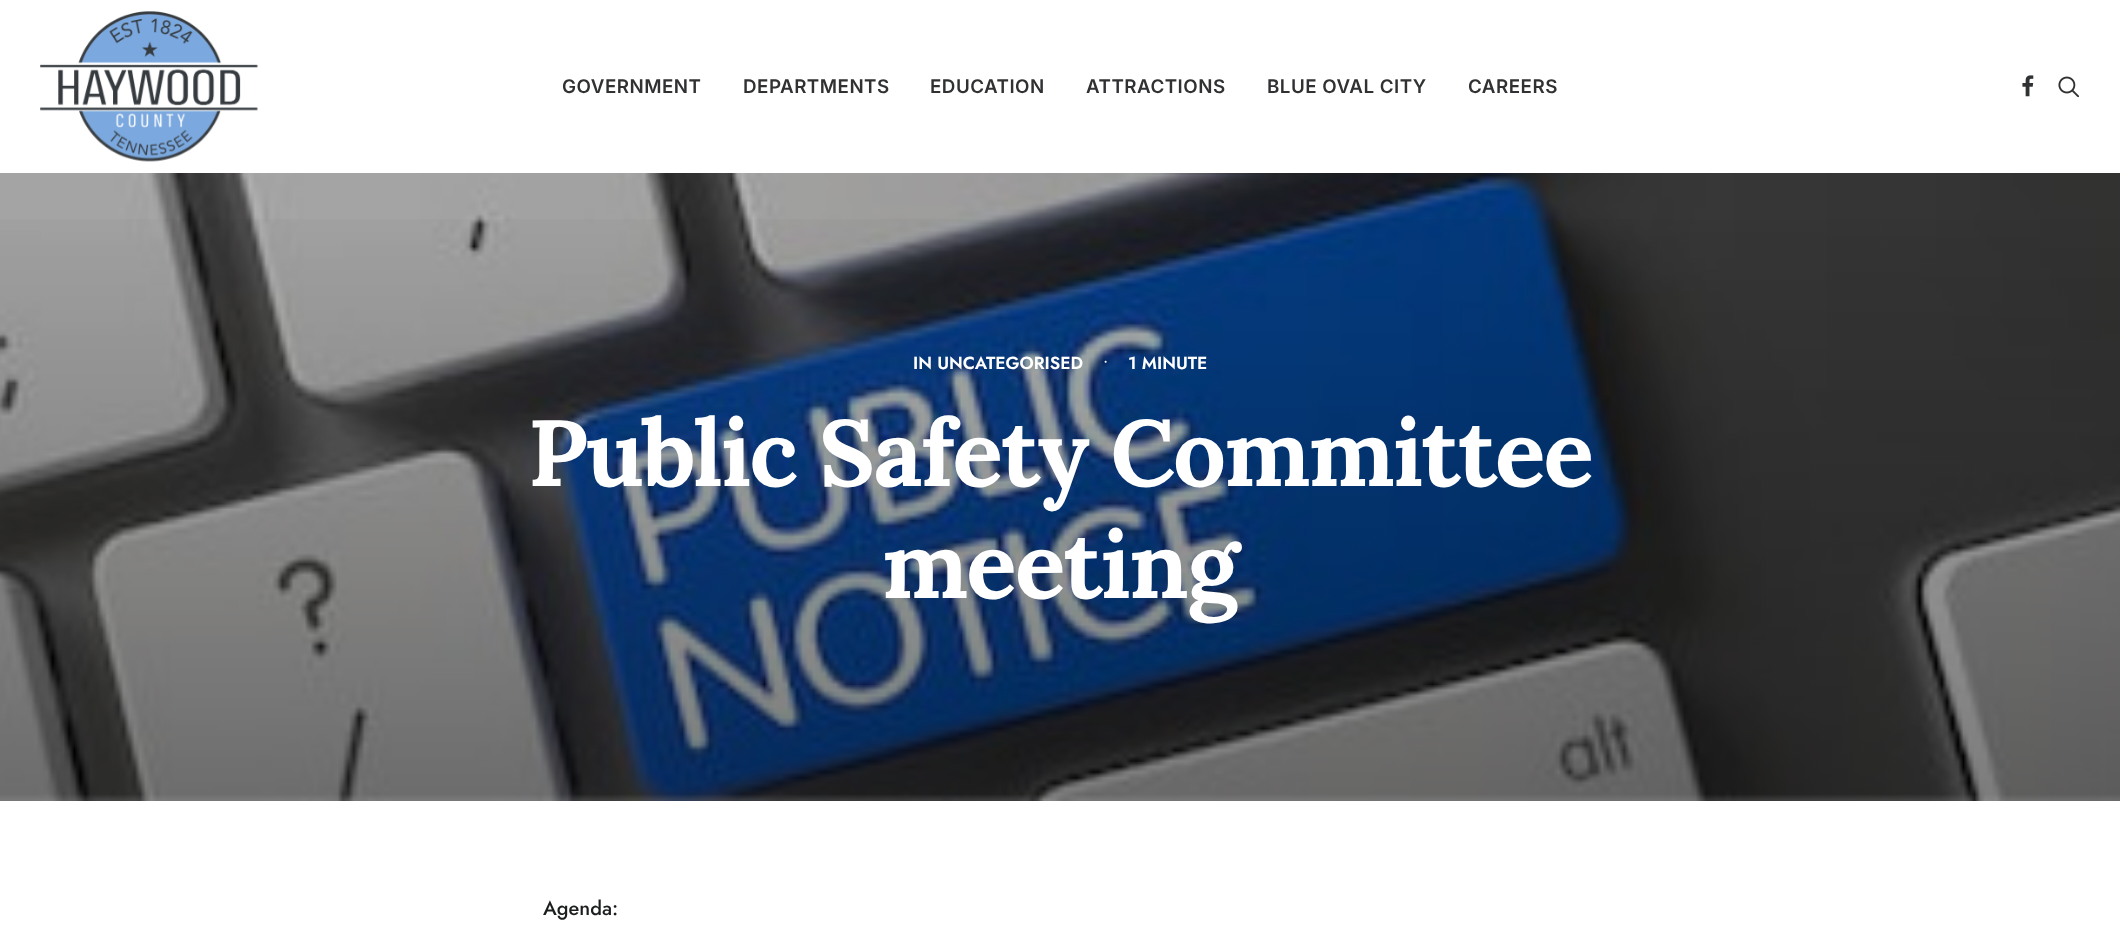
<!DOCTYPE html>
<meta charset="utf-8">
<style>body { margin: 0 } canvas { display: block }</style>
<canvas id="canvas" width="2120" height="947"></canvas>
<script type="module">
  const canvas = document.getElementById("canvas");
  const g = canvas.getContext("2d");
  g.miterLimit = 4;
  g.fontKerning = "normal";
  function drawText(s, x, y, [font, color]) {
    g.font = font;
    g.fillStyle = color;
    g.fillText(s, x, y);
  }
  function fillBox(x, y, w, h, color) {
    g.fillStyle = color;
    g.fillRect(x, y, w, h);
  }
  async function drawPicture(src, x, y, w, h) {
    const img = new Image();
    img.src = src;
    await img.decode();
    g.drawImage(img, x, y, w, h);
  }
  let gradient;

  const s1 = ["600 18.75px Inter", "#303133"];
  const s2 = ["600 17.5px Jost", "#FFFFFF"];
  const s3 = ["17.5px Jost", "#FFFFFF"];
  const s4 = ["bold 93.75px Lora", "#FFFFFF"];
  const s5 = ["500 20px Jost", "#1B1D1F"];

  fillBox(0, 0, 2120, 947, "#FFFFFF");
  await drawPicture("pic1.png", 40, 11, 218, 151);
  g.letterSpacing = "0.5px";
  drawText("GOVERNMENT", 562, 93, s1);
  drawText("DEPARTMENTS", 743, 93, s1);
  drawText("EDUCATION", 930, 93, s1);
  drawText("ATTRACTIONS", 1086, 93, s1);
  drawText("BLUE OVAL CITY", 1267, 93, s1);
  drawText("CAREERS", 1468, 93, s1);
  await drawPicture("pic2.png", 2022, 75, 12, 22);
  await drawPicture("pic3.png", 2058, 76, 21, 22);
  await drawPicture("pic4.png", 0, 173, 2120, 628);
  gradient = g.createLinearGradient(1060, 174, 1060, 802);
  gradient.addColorStop(0, "rgba(0, 0, 0, 0)");
  gradient.addColorStop(1, "rgba(0, 0, 0, 0.3)");
  g.fillStyle = gradient;
  g.fillRect(0, 219, 2120, 582);
  g.letterSpacing = "0px";
  drawText("IN UNCATEGORISED", 913, 369, s2);
  drawText("•", 1103, 369, s3);
  drawText("1 MINUTE", 1128, 369, s2);
  g.letterSpacing = "-1.9px";
  drawText("Public Safety Committee", 528, 486, s4);
  drawText("meeting", 882, 598, s4);
  g.letterSpacing = "0px";
  drawText("Agenda:", 543, 915, s5);
</script>
